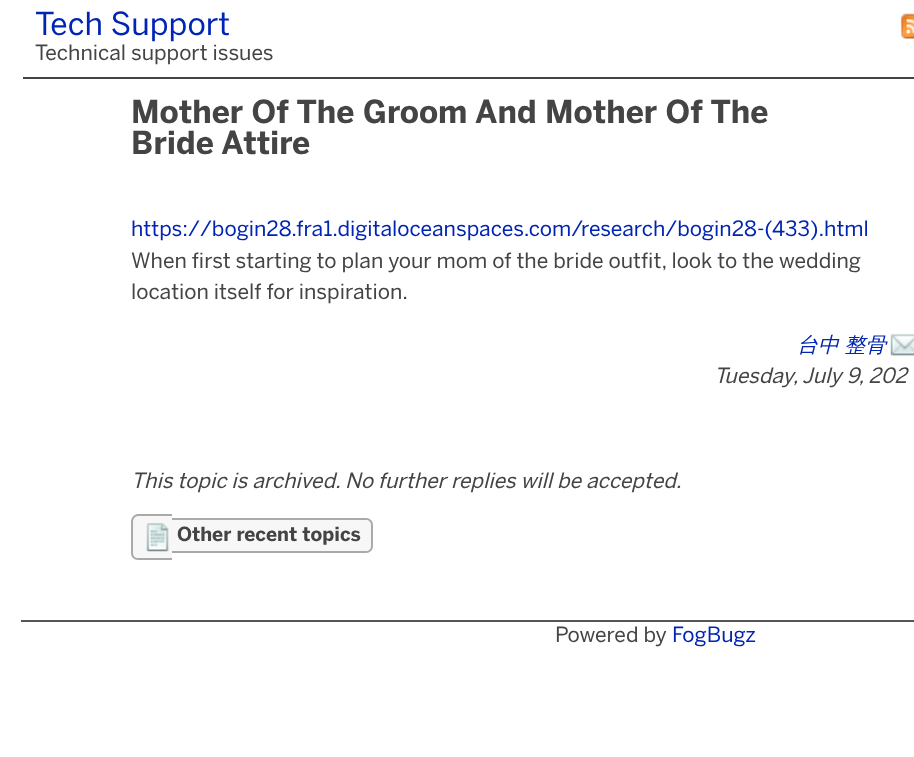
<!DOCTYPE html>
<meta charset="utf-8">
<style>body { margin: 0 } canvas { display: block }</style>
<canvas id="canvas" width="914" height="757"></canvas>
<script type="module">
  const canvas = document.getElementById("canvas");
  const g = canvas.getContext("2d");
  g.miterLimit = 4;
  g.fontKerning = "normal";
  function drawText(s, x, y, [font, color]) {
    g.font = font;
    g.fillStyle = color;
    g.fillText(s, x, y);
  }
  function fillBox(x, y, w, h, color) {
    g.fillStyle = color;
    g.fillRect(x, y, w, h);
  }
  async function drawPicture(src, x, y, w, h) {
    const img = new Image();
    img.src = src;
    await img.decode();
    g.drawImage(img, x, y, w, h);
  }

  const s1 = ["31.5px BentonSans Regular", "#0024B3"];
  const s2 = ["21px BentonSans Regular", "#444444"];
  const s3 = ["bold 31.5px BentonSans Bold", "#444444"];
  const s4 = ["21px BentonSans Regular", "#0024B3"];
  const s5 = ["italic 500 21px WenQuanYi Zen Hei", "#0024B3"];
  const s6 = ["italic 21px BentonSans Regular", "#444444"];
  const s7 = ["bold 19.25px BentonSans Bold", "#444444"];

  fillBox(0, 0, 914, 757, "#FFFFFF");
  drawText("Tech Support", 35, 35, s1);
  await drawPicture("pic1.png", 900, 13, 14, 26);
  fillBox(23, 77, 891, 2, "#444444");
  drawText("Technical support issues", 35, 60, s2);
  drawText("Mother Of The Groom And Mother Of The", 131, 123, s3);
  drawText("Bride Attire", 131, 154, s3);
  drawText("https://bogin28.fra1.digitaloceanspaces.com/research/bogin28-(433).html", 131, 236, s4);
  drawText("When first starting to plan your mom of the bride outfit, look to the wedding", 131, 268, s2);
  drawText("location itself for inspiration.", 131, 299, s2);
  g.wordSpacing = "-1px";
  drawText("台中 整骨", 797, 352, s5);
  await drawPicture("pic2.png", 890, 334, 24, 22);
  g.wordSpacing = "0px";
  drawText("Tuesday, July 9, 202", 714, 383, s6);
  drawText("This topic is archived. No further replies will be accepted.", 131, 488, s6);
  g.fillStyle = "#F7F7F7";
  g.beginPath();
  g.roundRect(131, 515, 41, 45, [7, 0, 0, 7]);
  g.fill();
  g.fillStyle = "#AAAAAA";
  g.beginPath();
  g.moveTo(138, 514);
  g.lineTo(172, 514);
  g.lineTo(172, 560);
  g.lineTo(138, 560);
  g.bezierCurveTo(134, 560, 131, 557, 131, 553);
  g.lineTo(131, 522);
  g.bezierCurveTo(131, 518, 134, 514, 138, 514);
  g.closePath();
  g.moveTo(138, 516);
  g.lineTo(172, 516);
  g.lineTo(172, 558);
  g.lineTo(138, 558);
  g.bezierCurveTo(135, 558, 133, 556, 133, 553);
  g.lineTo(133, 522);
  g.bezierCurveTo(133, 519, 135, 516, 138, 516);
  g.closePath();
  g.fill("evenodd");
  await drawPicture("pic3.png", 146, 523, 23, 29);
  g.fillStyle = "#F7F7F7";
  g.beginPath();
  g.roundRect(172, 518, 201, 35, [0, 7, 7, 0]);
  g.fill();
  g.fillStyle = "#AAAAAA";
  g.beginPath();
  g.moveTo(172, 518);
  g.lineTo(366, 518);
  g.bezierCurveTo(370, 518, 373, 521, 373, 525);
  g.lineTo(373, 546);
  g.bezierCurveTo(373, 550, 370, 553, 366, 553);
  g.lineTo(172, 553);
  g.closePath();
  g.moveTo(172, 520);
  g.lineTo(366, 520);
  g.bezierCurveTo(369, 520, 371, 522, 371, 525);
  g.lineTo(371, 546);
  g.bezierCurveTo(371, 549, 369, 551, 366, 551);
  g.lineTo(172, 551);
  g.closePath();
  g.fill("evenodd");
  drawText("Other recent topics", 177, 541, s7);
  fillBox(21, 620, 893, 2, "#555555");
  drawText("Powered by", 555, 642, s2);
  drawText("FogBugz", 672, 642, s4);
</script>
